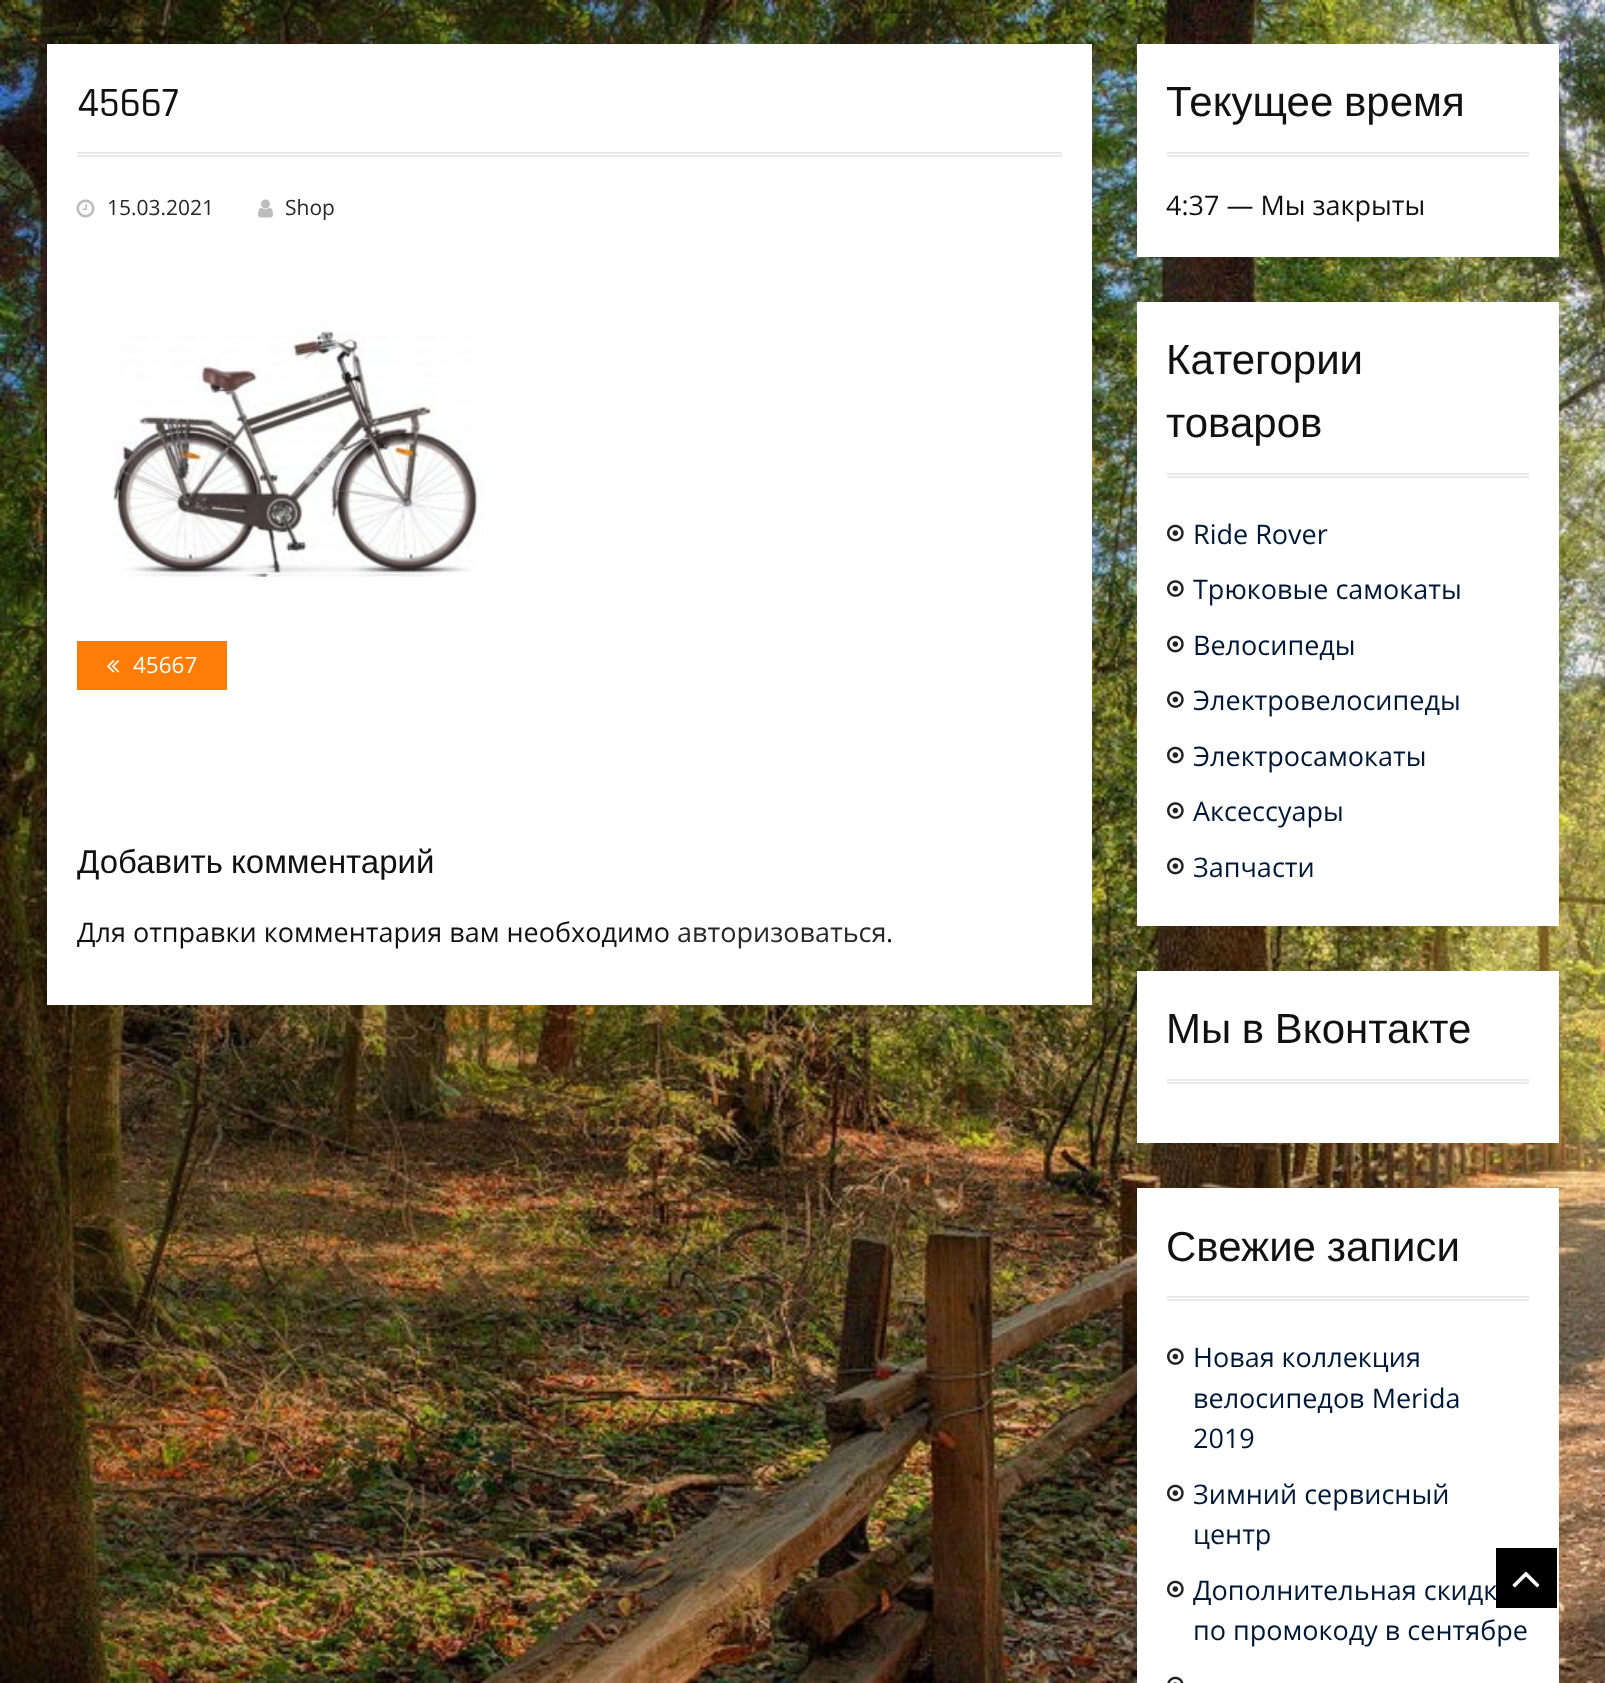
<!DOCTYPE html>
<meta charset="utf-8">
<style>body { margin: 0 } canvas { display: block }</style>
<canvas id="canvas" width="1605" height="1683"></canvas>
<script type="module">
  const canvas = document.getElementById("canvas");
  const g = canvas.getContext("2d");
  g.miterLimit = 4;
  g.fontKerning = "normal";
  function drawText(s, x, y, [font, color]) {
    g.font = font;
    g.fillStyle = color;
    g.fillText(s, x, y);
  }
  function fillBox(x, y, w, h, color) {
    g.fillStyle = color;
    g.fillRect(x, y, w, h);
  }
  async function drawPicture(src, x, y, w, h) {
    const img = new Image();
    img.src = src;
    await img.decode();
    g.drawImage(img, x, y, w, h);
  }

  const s1 = ["500 42px Rajdhani", "#111111"];
  const s2 = ["21px Open Sans", "#272727"];
  const s3 = ["22.5px Open Sans", "#FFFFFF"];
  const s4 = ["33px Liberation Sans", "#111111"];
  const s5 = ["27px Open Sans", "#111111"];
  const s6 = ["27px Open Sans", "#272727"];
  const s7 = ["42px Liberation Sans", "#111111"];
  const s8 = ["27px Open Sans", "#001837"];

  fillBox(0, 0, 1605, 1683, "#FFFFFF");
  await drawPicture("pic1.png", 0, 0, 1605, 1683);
  fillBox(47, 44, 1045, 961, "#FFFFFF");
  fillBox(77, 152, 985, 2, "#EBE9EB");
  fillBox(77, 155, 985, 2, "#EBE9EB");
  drawText("45667", 77, 116, s1);
  await drawPicture("pic2.png", 76, 199, 19, 19);
  drawText("15.03.2021", 107, 215, s2);
  await drawPicture("pic3.png", 258, 199, 15, 19);
  drawText("Shop", 285, 215, s2);
  await drawPicture("pic4.png", 113, 322, 371, 255);
  fillBox(77, 641, 150, 49, "#FF7D06");
  await drawPicture("pic5.png", 107, 660, 13, 13);
  drawText("45667", 133, 673, s3);
  g.save();
  g.beginPath();
  g.rect(77, 840, 985, 135);
  g.clip();
  g.wordSpacing = "-1px";
  drawText("Добавить комментарий", 77, 873, s4);
  g.wordSpacing = "0px";
  drawText("Для отправки комментария вам необходимо", 77, 942, s5);
  g.restore();
  drawText("авторизоваться", 677, 942, s6);
  drawText(".", 886, 942, s5);
  fillBox(1137, 44, 422, 213, "#FFFFFF");
  fillBox(1167, 152, 362, 2, "#EBE9EB");
  fillBox(1167, 155, 362, 2, "#EBE9EB");
  g.wordSpacing = "-1px";
  drawText("Текущее время", 1166, 116, s7);
  g.wordSpacing = "0px";
  drawText("4:37 — Мы закрыты", 1166, 215, s5);
  fillBox(1137, 302, 422, 624, "#FFFFFF");
  fillBox(1167, 473, 362, 2, "#EBE9EB");
  fillBox(1167, 476, 362, 2, "#EBE9EB");
  drawText("Категории", 1166, 374, s7);
  drawText("товаров", 1166, 437, s7);
  await drawPicture("pic6.png", 1167, 524, 17, 18);
  drawText("Ride Rover", 1193, 544, s8);
  await drawPicture("pic7.png", 1167, 580, 17, 17);
  drawText("Трюковые самокаты", 1193, 599, s8);
  await drawPicture("pic6.png", 1167, 635, 17, 18);
  drawText("Велосипеды", 1193, 655, s8);
  await drawPicture("pic7.png", 1167, 691, 17, 17);
  drawText("Электровелосипеды", 1193, 710, s8);
  await drawPicture("pic6.png", 1167, 746, 17, 18);
  drawText("Электросамокаты", 1193, 766, s8);
  await drawPicture("pic7.png", 1167, 802, 17, 17);
  drawText("Аксессуары", 1193, 821, s8);
  await drawPicture("pic6.png", 1167, 857, 17, 18);
  drawText("Запчасти", 1193, 877, s8);
  fillBox(1137, 971, 422, 172, "#FFFFFF");
  fillBox(1167, 1079, 362, 2, "#EBE9EB");
  fillBox(1167, 1082, 362, 2, "#EBE9EB");
  g.wordSpacing = "-1px";
  drawText("Мы в Вконтакте", 1166, 1043, s7);
  fillBox(1137, 1188, 422, 495, "#FFFFFF");
  fillBox(1167, 1296, 362, 2, "#EBE9EB");
  fillBox(1167, 1299, 362, 2, "#EBE9EB");
  drawText("Свежие записи", 1166, 1261, s7);
  await drawPicture("pic7.png", 1167, 1348, 17, 17);
  g.wordSpacing = "0px";
  drawText("Новая коллекция", 1193, 1367, s8);
  drawText("велосипедов Merida", 1193, 1408, s8);
  drawText("2019", 1193, 1448, s8);
  await drawPicture("pic6.png", 1167, 1484, 17, 18);
  drawText("Зимний сервисный", 1193, 1504, s8);
  drawText("центр", 1193, 1544, s8);
  await drawPicture("pic6.png", 1167, 1580, 17, 18);
  drawText("Дополнительная скидк", 1193, 1600, s8);
  drawText("по промокоду в сентябре", 1193, 1640, s8);
  await drawPicture("pic8.png", 1167, 1676, 17, 7);
  fillBox(1496, 1548, 61, 60, "#000000");
  await drawPicture("pic9.png", 1512, 1571, 28, 17);
</script>
